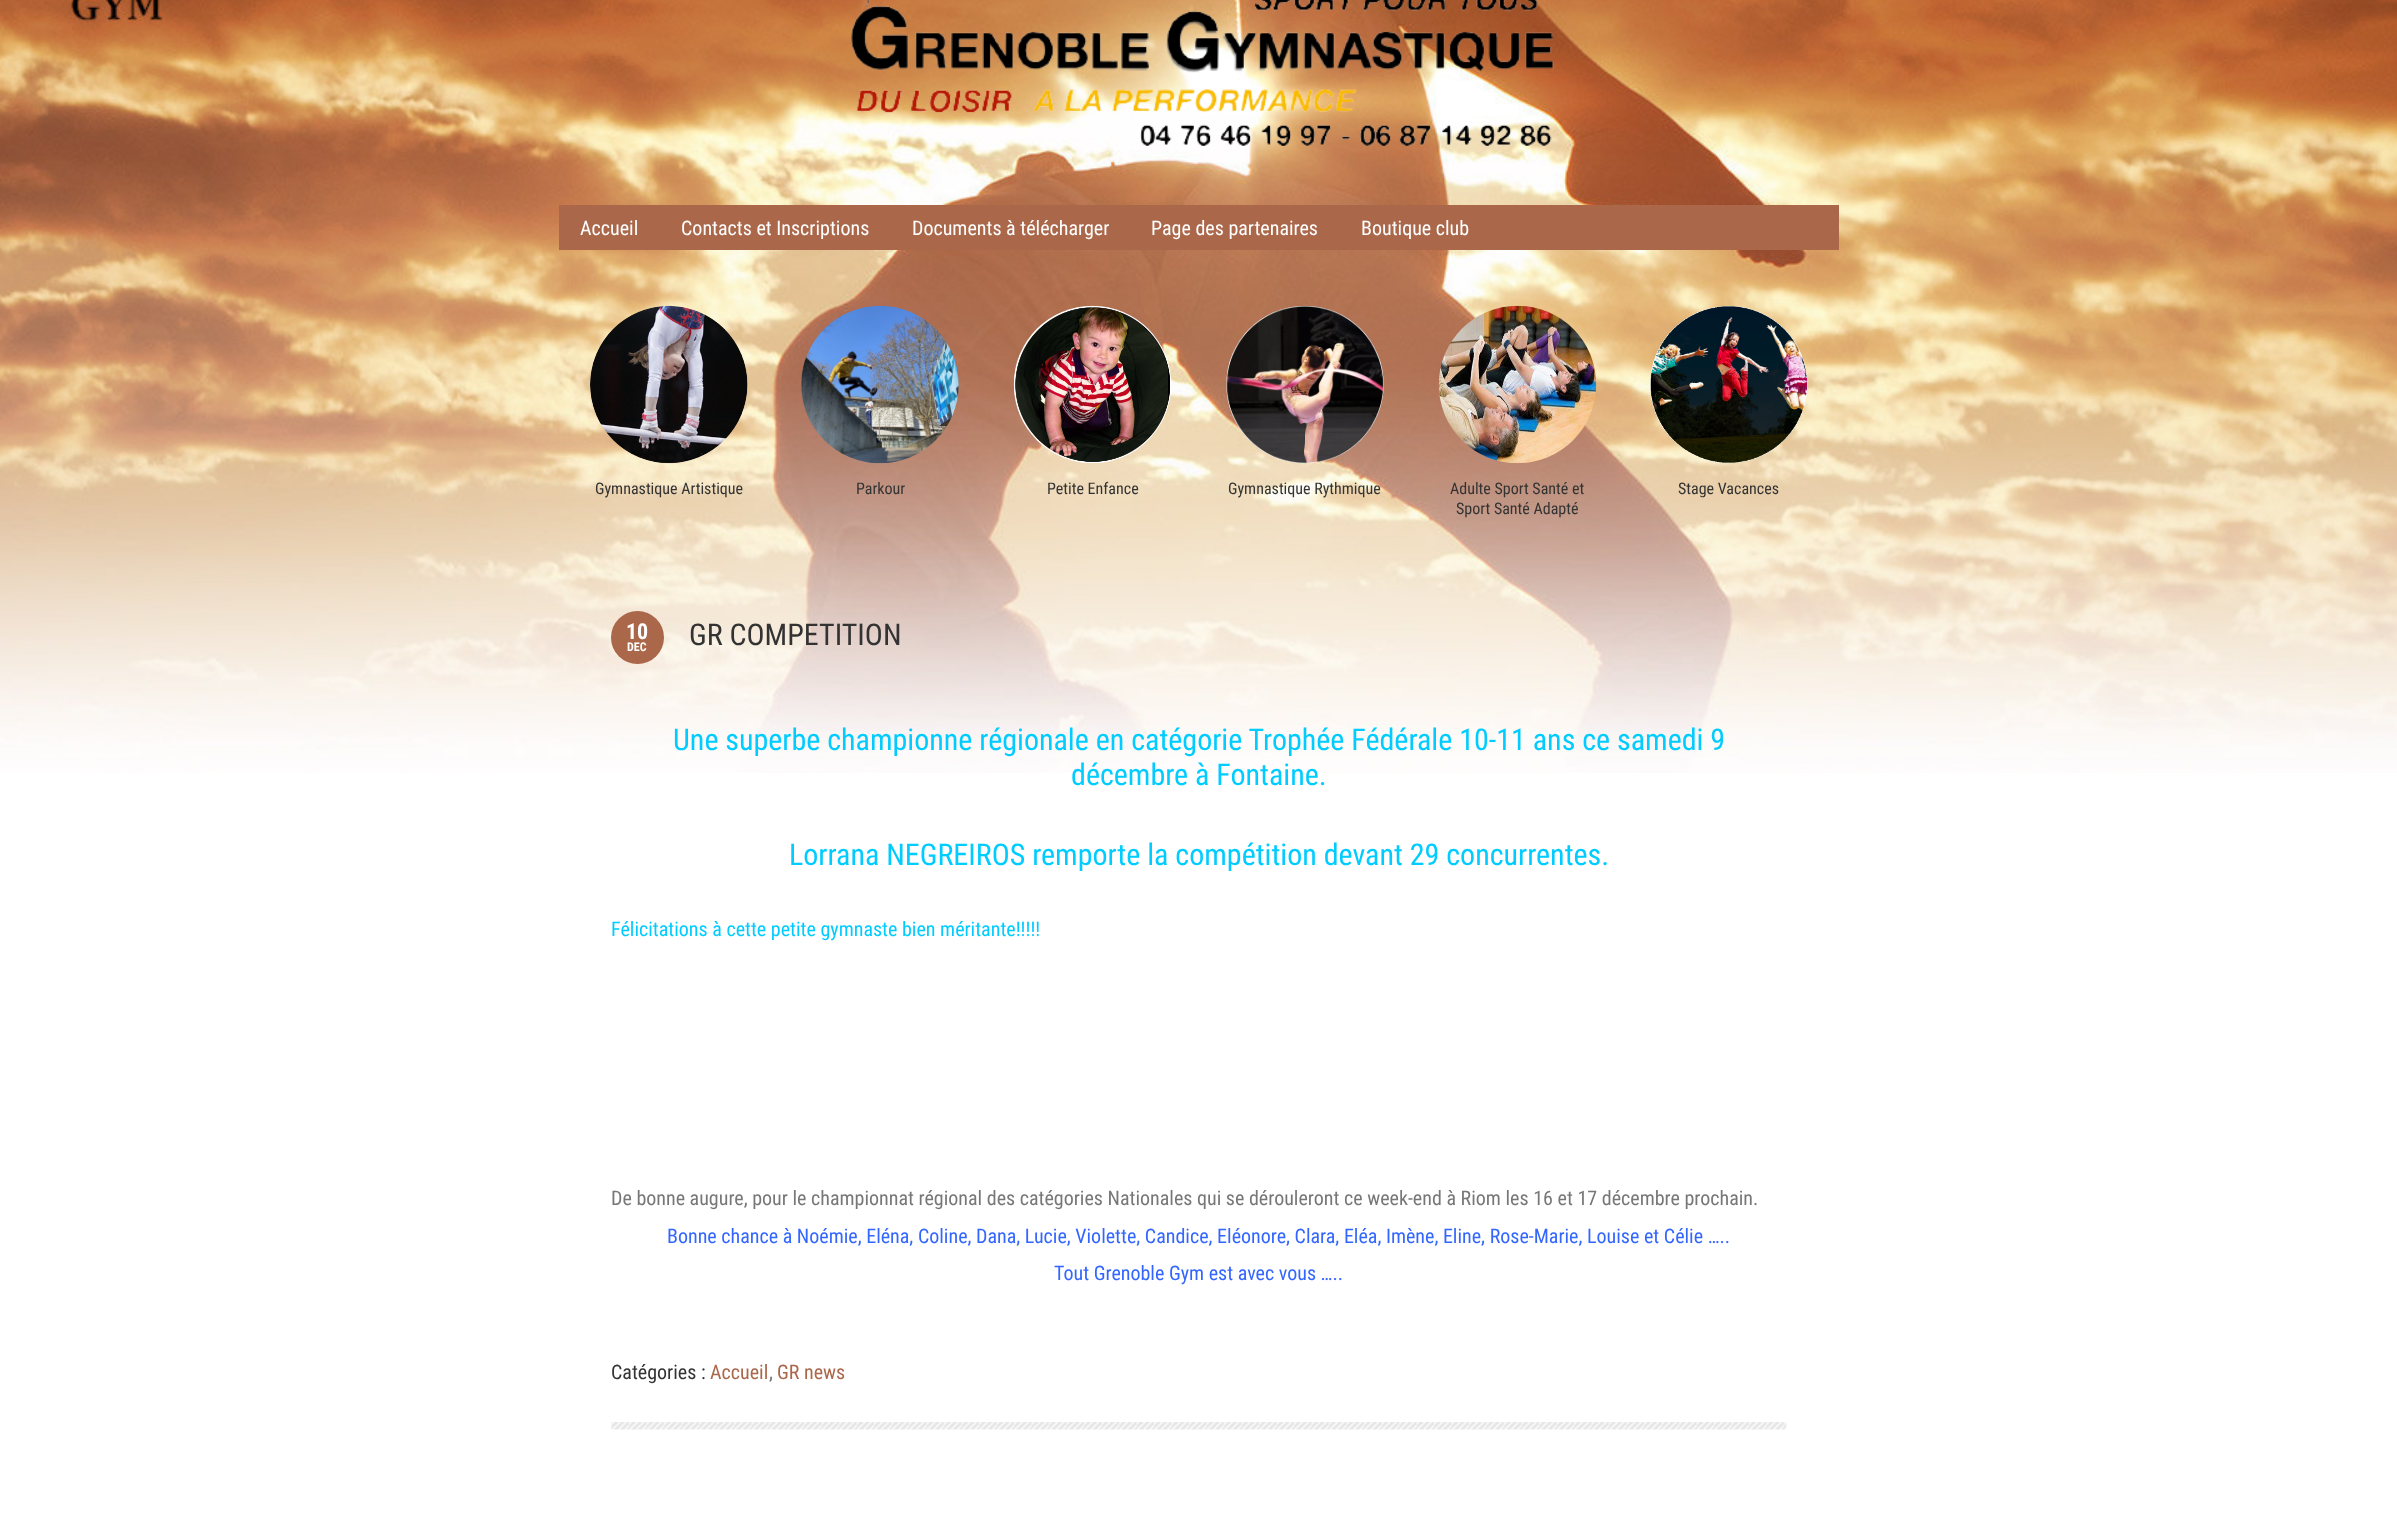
<!DOCTYPE html>
<meta charset="utf-8">
<style>body { margin: 0 } canvas { display: block }</style>
<canvas id="canvas" width="2397" height="1517"></canvas>
<script type="module">
  const canvas = document.getElementById("canvas");
  const g = canvas.getContext("2d");
  g.miterLimit = 4;
  g.fontKerning = "normal";
  function drawText(s, x, y, [font, color]) {
    g.font = font;
    g.fillStyle = color;
    g.fillText(s, x, y);
  }
  function fillBox(x, y, w, h, color) {
    g.fillStyle = color;
    g.fillRect(x, y, w, h);
  }
  async function drawPicture(src, x, y, w, h) {
    const img = new Image();
    img.src = src;
    await img.decode();
    g.drawImage(img, x, y, w, h);
  }

  const s1 = ["20px Roboto Condensed", "#FFFFFF"];
  const s2 = ["16px Roboto Condensed", "#333333"];
  const s3 = ["bold 22px Roboto Condensed", "#FFFFFF"];
  const s4 = ["bold 12px Roboto Condensed", "#FFFFFF"];
  const s5 = ["30px Roboto Condensed", "#333333"];
  const s6 = ["30px Roboto Condensed", "#00CCFF"];
  const s7 = ["20px Roboto Condensed", "#00CCFF"];
  const s8 = ["20px Roboto Condensed", "#777777"];
  const s9 = ["20px Roboto Condensed", "#3366FF"];
  const s10 = ["20px Roboto Condensed", "#333333"];
  const s11 = ["20px Roboto Condensed", "#AA674A"];

  fillBox(0, 0, 2397, 1517, "#FFFFFF");
  await drawPicture("pic1.png", 0, 0, 2397, 773);
  await drawPicture("pic2.png", 850, 0, 704, 146);
  fillBox(559, 205, 1280, 45, "#AA674A");
  drawText("Accueil", 580, 235, s1);
  drawText("Contacts et Inscriptions", 681, 235, s1);
  drawText("Documents à télécharger", 912, 235, s1);
  drawText("Page des partenaires", 1151, 235, s1);
  drawText("Boutique club", 1361, 235, s1);
  await drawPicture("pic3.png", 590, 305, 158, 159);
  drawText("Gymnastique Artistique", 595, 494, s2);
  await drawPicture("pic4.png", 801, 305, 158, 159);
  drawText("Parkour", 856, 494, s2);
  await drawPicture("pic5.png", 1013, 305, 158, 159);
  drawText("Petite Enfance", 1047, 494, s2);
  await drawPicture("pic6.png", 1226, 305, 158, 159);
  drawText("Gymnastique Rythmique", 1228, 494, s2);
  await drawPicture("pic7.png", 1438, 305, 159, 159);
  drawText("Adulte Sport Santé et", 1450, 494, s2);
  drawText("Sport Santé Adapté", 1456, 514, s2);
  await drawPicture("pic8.png", 1650, 305, 158, 159);
  drawText("Stage Vacances", 1678, 494, s2);
  g.fillStyle = "#AA674A";
  g.beginPath();
  g.arc(637.5, 637.5, 26.5, 0, Math.PI * 2);
  g.fill();
  drawText("10", 626, 639, s3);
  drawText("DEC", 627, 651, s4);
  drawText("GR COMPETITION", 689, 645, s5);
  drawText("Une superbe championne régionale en catégorie Trophée Fédérale 10-11 ans ce samedi 9", 673, 750, s6);
  drawText("décembre à Fontaine.", 1071, 785, s6);
  drawText("Lorrana NEGREIROS remporte la compétition devant 29 concurrentes.", 789, 865, s6);
  drawText("Félicitations à cette petite gymnaste bien méritante!!!!!", 611, 936, s7);
  drawText("De bonne augure, pour le championnat régional des catégories Nationales qui se dérouleront ce week-end à Riom les 16 et 17 décembre prochain.", 611, 1205, s8);
  drawText("Bonne chance à Noémie, Eléna, Coline, Dana, Lucie, Violette, Candice, Eléonore, Clara, Eléa, Imène, Eline, Rose-Marie, Louise et Célie …..", 667, 1243, s9);
  drawText("Tout Grenoble Gym est avec vous …..", 1054, 1280, s9);
  drawText("Catégories :", 611, 1379, s10);
  drawText("Accueil", 710, 1379, s11);
  drawText(",", 769, 1379, s8);
  drawText("GR news", 777, 1379, s11);
  await drawPicture("pic9.png", 611, 1422, 1176, 8);
</script>
